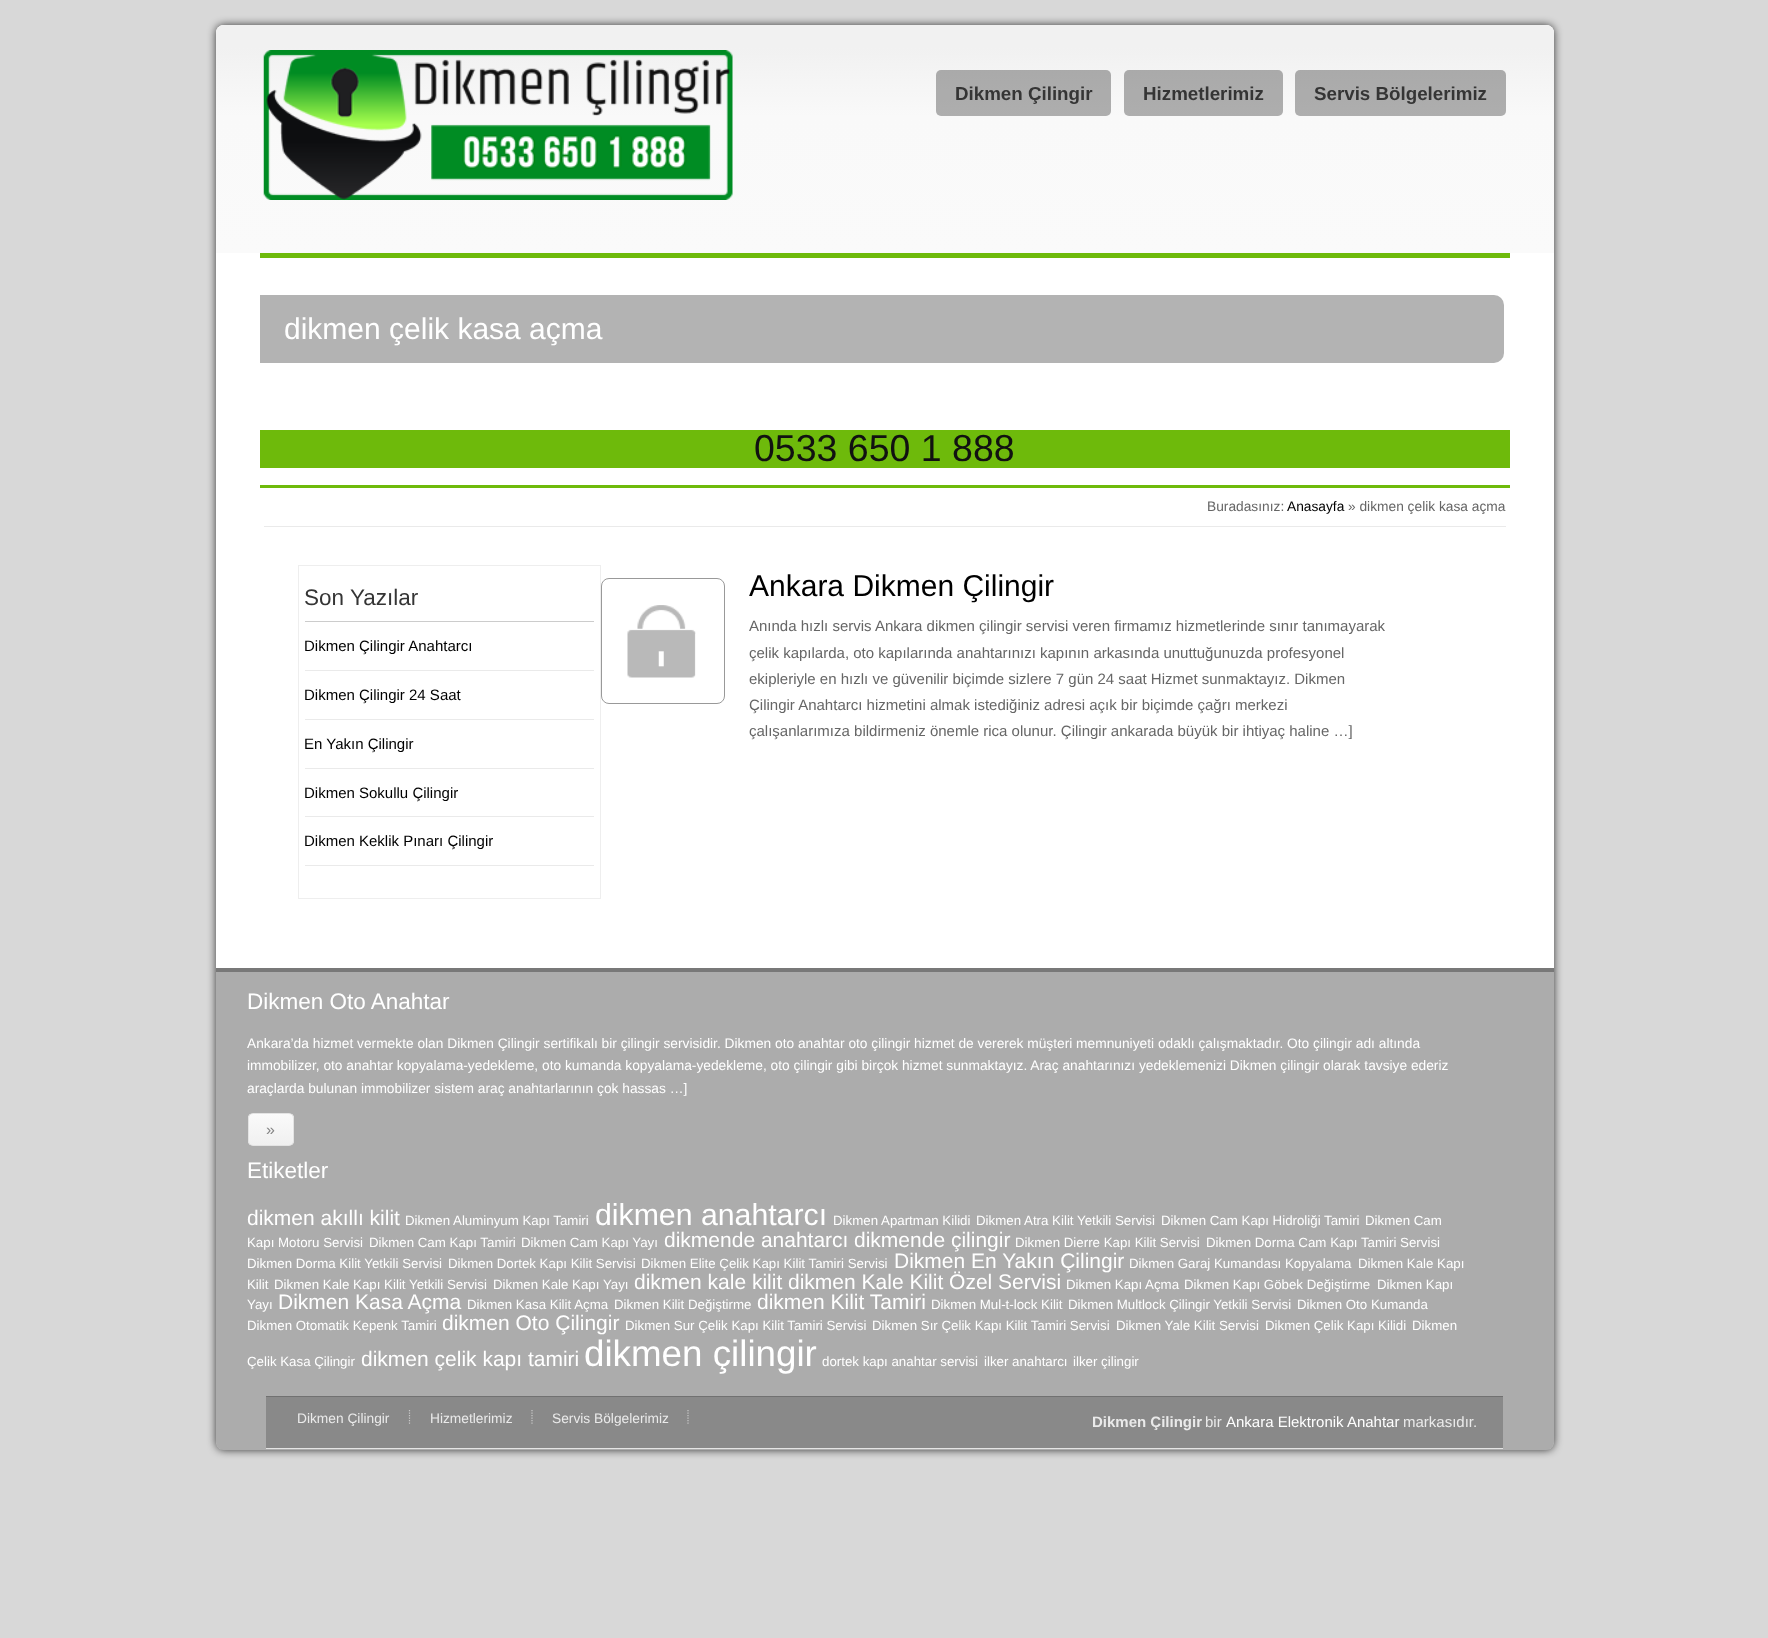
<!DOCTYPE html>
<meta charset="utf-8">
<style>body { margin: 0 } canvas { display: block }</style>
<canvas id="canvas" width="1768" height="1638"></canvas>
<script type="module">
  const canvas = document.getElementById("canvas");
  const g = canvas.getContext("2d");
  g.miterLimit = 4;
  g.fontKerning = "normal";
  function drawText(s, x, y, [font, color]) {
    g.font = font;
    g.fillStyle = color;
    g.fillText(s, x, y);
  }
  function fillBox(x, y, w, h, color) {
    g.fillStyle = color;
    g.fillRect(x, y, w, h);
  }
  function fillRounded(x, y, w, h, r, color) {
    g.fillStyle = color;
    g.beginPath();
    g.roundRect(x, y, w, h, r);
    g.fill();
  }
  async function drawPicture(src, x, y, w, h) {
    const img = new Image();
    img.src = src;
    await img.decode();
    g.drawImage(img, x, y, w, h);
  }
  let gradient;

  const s1 = ["bold 18.75px Liberation Sans", "#353535"];
  const s2 = ["30px Liberation Sans", "#FFFFFF"];
  const s3 = ["37.5px Liberation Sans", "#111111"];
  const s4 = ["13.75px Liberation Sans", "#666666"];
  const s5 = ["13.75px Liberation Sans", "#000000"];
  const s6 = ["22.5px Liberation Sans", "#353535"];
  const s7 = ["15px Liberation Sans", "#000000"];
  const s8 = ["30px Liberation Sans", "#000000"];
  const s9 = ["15px Liberation Sans", "#666666"];
  const s10 = ["22.5px Liberation Sans", "#FFFFFF"];
  const s11 = ["13.75px Liberation Sans", "#FFFFFF"];
  const s12 = ["16px Liberation Sans", "#858585"];
  const s13 = ["21px Liberation Sans", "#FFFFFF"];
  const s14 = ["13.3px Liberation Sans", "#FFFFFF"];
  const s15 = ["30.25px Liberation Sans", "#FFFFFF"];
  const s16 = ["36.75px Liberation Sans", "#FFFFFF"];
  const s17 = ["13.75px Liberation Sans", "#EAEAEA"];
  const s18 = ["bold 15px Liberation Sans", "#EAEAEA"];
  const s19 = ["15px Liberation Sans", "#EAEAEA"];
  const s20 = ["15px Liberation Sans", "#FFFFFF"];

  fillBox(0, 0, 1768, 1638, "#D8D8D8");
  g.save();
  g.beginPath();
  g.moveTo(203, 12);
  g.lineTo(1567, 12);
  g.lineTo(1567, 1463);
  g.lineTo(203, 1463);
  g.closePath();
  g.moveTo(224, 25);
  g.lineTo(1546, 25);
  g.bezierCurveTo(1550.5, 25, 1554, 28.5, 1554, 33);
  g.lineTo(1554, 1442);
  g.bezierCurveTo(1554, 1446.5, 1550.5, 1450, 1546, 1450);
  g.lineTo(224, 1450);
  g.bezierCurveTo(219.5, 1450, 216, 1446.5, 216, 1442);
  g.lineTo(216, 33);
  g.bezierCurveTo(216, 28.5, 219.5, 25, 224, 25);
  g.closePath();
  g.clip("evenodd");
  g.fillStyle = "rgba(0, 0, 0, 0.75)";
  g.filter = "blur(4px)";
  g.beginPath();
  g.roundRect(216, 25, 1338, 1425, 8);
  g.fill();
  g.filter = "none";
  g.restore();
  g.fillStyle = "#FFFFFF";
  g.beginPath();
  g.roundRect(216, 25, 1338, 874, [8, 8, 0, 0]);
  g.fill();
  gradient = g.createLinearGradient(885, 25, 885, 253);
  gradient.addColorStop(0, "#F1F1F1");
  gradient.addColorStop(0.1, "#F1F1F1");
  gradient.addColorStop(0.4, "#F9F9F9");
  gradient.addColorStop(1, "#FAFAFA");
  g.fillStyle = gradient;
  g.beginPath();
  g.roundRect(216, 25, 1338, 228, [8, 8, 0, 0]);
  g.fill();
  await drawPicture("pic1.png", 263, 50, 470, 150);
  fillRounded(936, 70, 175, 46, 5, "rgba(0, 0, 0, 0.3)");
  drawText("Dikmen Çilingir", 955, 100, s1);
  fillRounded(1124, 70, 159, 46, 5, "rgba(0, 0, 0, 0.3)");
  drawText("Hizmetlerimiz", 1143, 100, s1);
  fillRounded(1295, 70, 211, 46, 5, "rgba(0, 0, 0, 0.3)");
  drawText("Servis Bölgelerimiz", 1314, 100, s1);
  fillBox(260, 253, 1250, 5, "#6EBA0B");
  fillBox(260, 485, 1250, 3, "#6EBA0B");
  g.fillStyle = "#B3B3B3";
  g.beginPath();
  g.roundRect(260, 295, 1244, 68, [0, 10, 10, 0]);
  g.fill();
  drawText("dikmen çelik kasa açma", 284, 339, s2);
  fillBox(260, 430, 1250, 38, "#6EBA0B");
  drawText("0533 650 1 888", 754, 461, s3);
  fillBox(264, 526, 1242, 1, "#EAEAEA");
  drawText("Buradasınız:", 1207, 511, s4);
  drawText("Anasayfa", 1287, 511, s5);
  drawText("» dikmen çelik kasa açma", 1348, 511, s4);
  g.strokeStyle = "#EEEEEE";
  g.strokeRect(298.5, 565.5, 302, 333);
  fillBox(305, 621, 289, 1, "#CCCCCC");
  drawText("Son Yazılar", 304, 605, s6);
  fillBox(305, 670, 289, 1, "#EAEAEA");
  drawText("Dikmen Çilingir Anahtarcı", 304, 651, s7);
  fillBox(305, 719, 289, 1, "#EAEAEA");
  drawText("Dikmen Çilingir 24 Saat", 304, 700, s7);
  fillBox(305, 768, 289, 1, "#EAEAEA");
  drawText("En Yakın Çilingir", 304, 749, s7);
  fillBox(305, 816, 289, 1, "#EAEAEA");
  drawText("Dikmen Sokullu Çilingir", 304, 798, s7);
  fillBox(305, 865, 289, 1, "#EAEAEA");
  drawText("Dikmen Keklik Pınarı Çilingir", 304, 846, s7);
  await drawPicture("pic2.png", 627, 605, 69, 73);
  g.beginPath();
  g.roundRect(601.5, 578.5, 123, 125, 7.5);
  g.strokeStyle = "#999999";
  g.stroke();
  drawText("Ankara Dikmen Çilingir", 749, 596, s8);
  drawText("Anında hızlı servis Ankara dikmen çilingir servisi veren firmamız hizmetlerinde sınır tanımayarak", 749, 631, s9);
  drawText("çelik kapılarda, oto kapılarında anahtarınızı kapının arkasında unuttuğunuzda profesyonel", 749, 658, s9);
  drawText("ekipleriyle en hızlı ve güvenilir biçimde sizlere 7 gün 24 saat Hizmet sunmaktayız. Dikmen", 749, 684, s9);
  drawText("Çilingir Anahtarcı hizmetini almak istediğiniz adresi açık bir biçimde çağrı merkezi", 749, 710, s9);
  drawText("çalışanlarımıza bildirmeniz önemle rica olunur. Çilingir ankarada büyük bir ihtiyaç haline …]", 749, 736, s9);
  fillBox(216, 899, 1338, 69, "#FFFFFF");
  g.fillStyle = "rgba(0, 0, 0, 0.2)";
  g.beginPath();
  g.roundRect(216, 968, 1338, 482, [0, 0, 8, 8]);
  g.fill();
  fillBox(216, 968, 1338, 4, "rgba(0, 0, 0, 0.3)");
  drawText("Dikmen Oto Anahtar", 247, 1009, s10);
  drawText("Ankara’da hizmet vermekte olan Dikmen Çilingir sertifikalı bir çilingir servisidir. Dikmen oto anahtar oto çilingir hizmet de vererek müşteri memnuniyeti odaklı çalışmaktadır. Oto çilingir adı altında", 247, 1048, s11);
  drawText("immobilizer, oto anahtar kopyalama-yedekleme, oto kumanda kopyalama-yedekleme, oto çilingir gibi birçok hizmet sunmaktayız. Araç anahtarınızı yedeklemenizi Dikmen çilingir olarak tavsiye ederiz", 247, 1070, s11);
  drawText("araçlarda bulunan immobilizer sistem araç anahtarlarının çok hassas …]", 247, 1093, s11);
  g.save();
  g.beginPath();
  g.roundRect(248, 1113, 46, 33, 5);
  g.clip();
  gradient = g.createLinearGradient(271, 1114, 271, 1145);
  gradient.addColorStop(0, "#FAFAFA");
  gradient.addColorStop(1, "#F0F0F0");
  g.fillStyle = gradient;
  g.fillRect(248, 1114, 46, 31);
  g.restore();
  g.fillStyle = "rgba(255, 255, 255, 0.2)";
  g.beginPath();
  g.moveTo(252, 1115);
  g.lineTo(277, 1115);
  g.bezierCurveTo(293, 1115, 292, 1112, 292, 1127);
  g.lineTo(292, 1144);
  g.bezierCurveTo(294, 1141, 293, 1133, 293, 1130);
  g.bezierCurveTo(293, 1112, 295, 1114, 277, 1114);
  g.lineTo(259, 1114);
  g.bezierCurveTo(254, 1114, 249, 1113, 249, 1119);
  g.bezierCurveTo(249, 1117, 250, 1115, 252, 1115);
  g.closePath();
  g.fill();
  g.beginPath();
  g.roundRect(248.5, 1113.5, 45, 32, 4.5);
  g.strokeStyle = "#E3E3E3";
  g.stroke();
  drawText("»", 266, 1135, s12);
  drawText("Etiketler", 247, 1178, s10);
  drawText("dikmen akıllı kilit", 247, 1225, s13);
  drawText("Dikmen Aluminyum Kapı Tamiri", 405, 1225, s14);
  drawText("dikmen anahtarcı", 595, 1225, s15);
  drawText("Dikmen Apartman Kilidi", 833, 1225, s14);
  drawText("Dikmen Atra Kilit Yetkili Servisi", 976, 1225, s14);
  drawText("Dikmen Cam Kapı Hidroliği Tamiri", 1161, 1225, s14);
  drawText("Dikmen Cam", 1365, 1225, s14);
  drawText("Kapı Motoru Servisi", 247, 1247, s14);
  drawText("Dikmen Cam Kapı Tamiri", 369, 1247, s14);
  drawText("Dikmen Cam Kapı Yayı", 521, 1247, s14);
  drawText("dikmende anahtarcı", 664, 1247, s13);
  drawText("dikmende çilingir", 854, 1247, s13);
  drawText("Dikmen Dierre Kapı Kilit Servisi", 1015, 1247, s14);
  drawText("Dikmen Dorma Cam Kapı Tamiri Servisi", 1206, 1247, s14);
  drawText("Dikmen Dorma Kilit Yetkili Servisi", 247, 1268, s14);
  drawText("Dikmen Dortek Kapı Kilit Servisi", 448, 1268, s14);
  drawText("Dikmen Elite Çelik Kapı Kilit Tamiri Servisi", 641, 1268, s14);
  drawText("Dikmen En Yakın Çilingir", 894, 1268, s13);
  drawText("Dikmen Garaj Kumandası Kopyalama", 1129, 1268, s14);
  drawText("Dikmen Kale Kapı", 1358, 1268, s14);
  drawText("Kilit", 247, 1289, s14);
  drawText("Dikmen Kale Kapı Kilit Yetkili Servisi", 274, 1289, s14);
  drawText("Dikmen Kale Kapı Yayı", 493, 1289, s14);
  drawText("dikmen kale kilit", 634, 1289, s13);
  drawText("dikmen Kale Kilit Özel Servisi", 788, 1289, s13);
  drawText("Dikmen Kapı Açma", 1066, 1289, s14);
  drawText("Dikmen Kapı Göbek Değiştirme", 1184, 1289, s14);
  drawText("Dikmen Kapı", 1377, 1289, s14);
  drawText("Yayı", 247, 1309, s14);
  drawText("Dikmen Kasa Açma", 278, 1309, s13);
  drawText("Dikmen Kasa Kilit Açma", 467, 1309, s14);
  drawText("Dikmen Kilit Değiştirme", 614, 1309, s14);
  drawText("dikmen Kilit Tamiri", 757, 1309, s13);
  drawText("Dikmen Mul-t-lock Kilit", 931, 1309, s14);
  drawText("Dikmen Multlock Çilingir Yetkili Servisi", 1068, 1309, s14);
  drawText("Dikmen Oto Kumanda", 1297, 1309, s14);
  drawText("Dikmen Otomatik Kepenk Tamiri", 247, 1330, s14);
  drawText("dikmen Oto Çilingir", 442, 1330, s13);
  drawText("Dikmen Sur Çelik Kapı Kilit Tamiri Servisi", 625, 1330, s14);
  drawText("Dikmen Sır Çelik Kapı Kilit Tamiri Servisi", 872, 1330, s14);
  drawText("Dikmen Yale Kilit Servisi", 1116, 1330, s14);
  drawText("Dikmen Çelik Kapı Kilidi", 1265, 1330, s14);
  drawText("Dikmen", 1412, 1330, s14);
  drawText("Çelik Kasa Çilingir", 247, 1366, s14);
  drawText("dikmen çelik kapı tamiri", 361, 1366, s13);
  drawText("dikmen çilingir", 584, 1366, s16);
  drawText("dortek kapı anahtar servisi", 822, 1366, s14);
  drawText("ilker anahtarcı", 984, 1366, s14);
  drawText("ilker çilingir", 1073, 1366, s14);
  g.save();
  g.beginPath();
  g.moveTo(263, 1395);
  g.lineTo(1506, 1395);
  g.lineTo(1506, 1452);
  g.lineTo(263, 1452);
  g.closePath();
  g.moveTo(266, 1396);
  g.lineTo(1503, 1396);
  g.lineTo(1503, 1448);
  g.lineTo(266, 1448);
  g.closePath();
  g.clip("evenodd");
  g.fillStyle = "rgba(255, 255, 255, 0.67)";
  g.filter = "blur(0.5px)";
  g.beginPath();
  g.rect(266, 1398, 1237, 51);
  g.fill();
  g.filter = "none";
  g.restore();
  fillBox(266, 1397, 1237, 51, "rgba(0, 0, 0, 0.2)");
  fillBox(266, 1396, 1237, 1, "#717171");
  drawText("Dikmen Çilingir", 297, 1423, s17);
  g.beginPath();
  g.moveTo(409.5, 1410);
  g.lineTo(409.5, 1425);
  g.strokeStyle = "#CACACA";
  g.lineWidth = 1.2;
  g.setLineDash([1.25, 1.25]);
  g.stroke();
  drawText("Hizmetlerimiz", 430, 1423, s17);
  g.beginPath();
  g.moveTo(532, 1410);
  g.lineTo(532, 1425);
  g.stroke();
  drawText("Servis Bölgelerimiz", 552, 1423, s17);
  g.beginPath();
  g.moveTo(688, 1410);
  g.lineTo(688, 1425);
  g.stroke();
  drawText("Dikmen Çilingir", 1092, 1427, s18);
  drawText("bir", 1205, 1427, s19);
  drawText("Ankara Elektronik Anahtar", 1226, 1427, s20);
  drawText("markasıdır.", 1403, 1427, s19);
</script>
